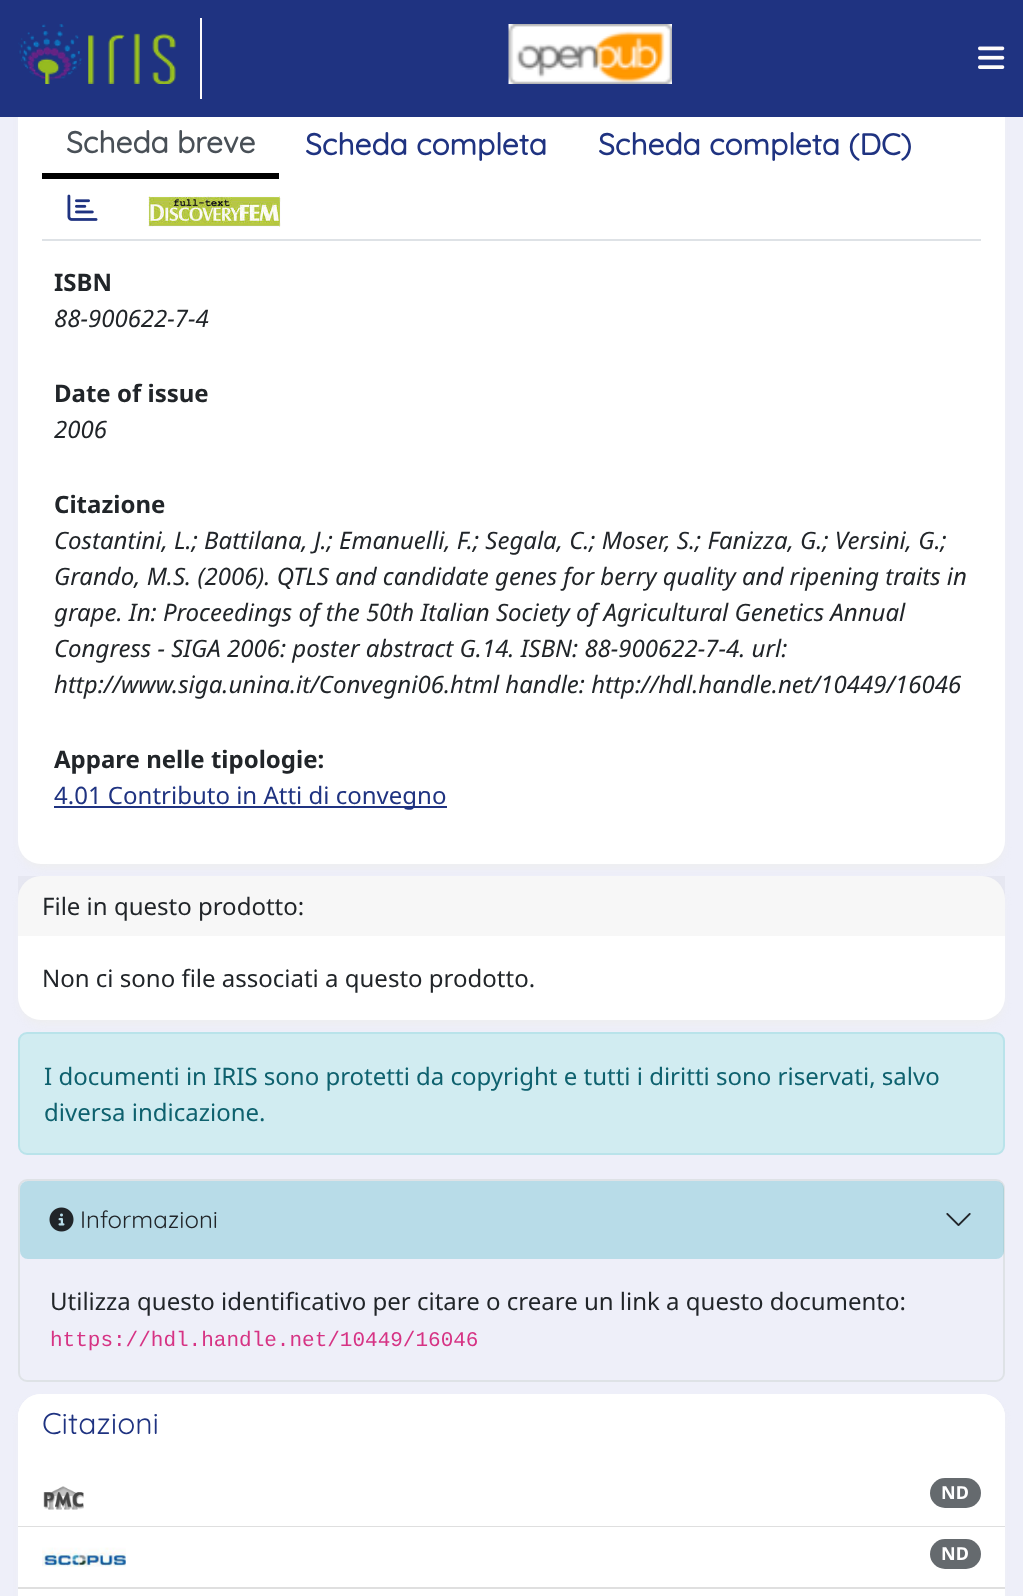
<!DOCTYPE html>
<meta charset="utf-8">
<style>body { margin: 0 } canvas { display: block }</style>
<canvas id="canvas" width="1023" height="1596"></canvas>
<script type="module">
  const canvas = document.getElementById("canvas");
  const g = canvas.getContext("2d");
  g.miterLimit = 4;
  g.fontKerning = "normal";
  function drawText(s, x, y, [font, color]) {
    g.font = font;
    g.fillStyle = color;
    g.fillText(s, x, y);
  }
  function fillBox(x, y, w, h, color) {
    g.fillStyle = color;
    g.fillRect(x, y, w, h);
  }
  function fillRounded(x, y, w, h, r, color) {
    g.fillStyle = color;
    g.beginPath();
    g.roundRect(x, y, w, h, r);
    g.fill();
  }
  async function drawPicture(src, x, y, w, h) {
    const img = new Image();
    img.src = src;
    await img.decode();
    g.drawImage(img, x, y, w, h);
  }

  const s1 = ["bold 30px Quicksand", "#495057"];
  const s2 = ["bold 30px Quicksand", "#1F3381"];
  const s3 = ["bold 24px Noto Sans", "#212529"];
  const s4 = ["italic 24px Noto Sans", "#212529"];
  const s5 = ["24px Noto Sans", "#1F3381"];
  const s6 = ["24px Noto Sans", "#212529"];
  const s7 = ["24px Noto Sans", "#0E616E"];
  const s8 = ["300 24px Quicksand", "#212529"];
  const s9 = ["21px Liberation Mono", "#D63384"];
  const s10 = ["300 30px Quicksand", "#1F3381"];
  const s11 = ["bold 18px Noto Sans", "#FFFFFF"];

  fillBox(0, 0, 1023, 1596, "#EEEFF9");
  g.fillStyle = "#EEEEEE";
  g.filter = "blur(4.5px)";
  g.beginPath();
  g.roundRect(21, -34, 981, 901, 20);
  g.fill();
  g.filter = "none";
  fillRounded(18, -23, 987, 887, 23, "#FFFFFF");
  fillBox(0, 0, 1023, 117, "#1F3381");
  fillBox(200, 18, 2, 81, "#FEFBFB");
  await drawPicture("pic1.png", 18, 24, 158, 60);
  await drawPicture("pic2.png", 508, 24, 164, 60);
  await drawPicture("pic3.png", 978, 46, 27, 23);
  fillBox(42, 239, 939, 2, "#DEE2E6");
  fillBox(42, 173, 237, 6, "#000000");
  drawText("Scheda breve", 66, 153, s1);
  drawText("Scheda completa", 305, 155, s2);
  drawText("Scheda completa (DC)", 598, 155, s2);
  await drawPicture("pic4.png", 67, 194, 31, 27);
  await drawPicture("pic5.png", 148, 196, 133, 31);
  drawText("ISBN", 54, 291, s3);
  drawText("88-900622-7-4", 54, 327, s4);
  drawText("Date of issue", 54, 402, s3);
  drawText("2006", 54, 438, s4);
  drawText("Citazione", 54, 513, s3);
  drawText("Costantini, L.; Battilana, J.; Emanuelli, F.; Segala, C.; Moser, S.; Fanizza, G.; Versini, G.;", 54, 549, s4);
  drawText("Grando, M.S. (2006). QTLS and candidate genes for berry quality and ripening traits in", 54, 585, s4);
  drawText("grape. In: Proceedings of the 50th Italian Society of Agricultural Genetics Annual", 54, 621, s4);
  drawText("Congress - SIGA 2006: poster abstract G.14. ISBN: 88-900622-7-4. url:", 54, 657, s4);
  drawText("http://www.siga.unina.it/Convegni06.html handle: http://hdl.handle.net/10449/16046", 54, 693, s4);
  drawText("Appare nelle tipologie:", 54, 768, s3);
  fillBox(54, 806, 393, 2, "#1F3381");
  drawText("4.01 Contributo in Atti di convegno", 54, 804, s5);
  g.fillStyle = "#EEEEEE";
  g.filter = "blur(4.5px)";
  g.beginPath();
  g.roundRect(21, 885, 981, 138, 20);
  g.fill();
  g.filter = "none";
  fillRounded(18, 876, 987, 144, 23, "#FFFFFF");
  fillBox(18, 876, 987, 60, "rgba(0, 0, 0, 0.03)");
  drawText("File in questo prodotto:", 42, 915, s6);
  drawText("Non ci sono file associati a questo prodotto.", 42, 987, s6);
  g.fillStyle = "#D1ECF1";
  g.beginPath();
  g.roundRect(19, 1033, 985, 121, 8);
  g.fill();
  g.strokeStyle = "#B9E3EA";
  g.lineWidth = 2;
  g.stroke();
  drawText("I documenti in IRIS sono protetti da copyright e tutti i diritti sono riservati, salvo", 44, 1085, s7);
  drawText("diversa indicazione.", 44, 1121, s7);
  g.beginPath();
  g.roundRect(19, 1180, 985, 201, 8);
  g.strokeStyle = "#DEE2E6";
  g.stroke();
  fillRounded(20, 1181, 984, 78, 8, "rgba(23, 162, 184, 0.25)");
  await drawPicture("pic6.png", 49, 1207, 25, 25);
  drawText("Informazioni", 80, 1228, s8);
  await drawPicture("pic7.png", 946, 1213, 25, 13);
  drawText("Utilizza questo identificativo per citare o creare un link a questo documento:", 50, 1310, s6);
  drawText("https://hdl.handle.net/10449/16046", 50, 1346, s9);
  g.fillStyle = "#EEEEEE";
  g.filter = "blur(4.5px)";
  g.beginPath();
  g.roundRect(21, 1403, 981, 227, 20);
  g.fill();
  g.filter = "none";
  fillRounded(18, 1394, 987, 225, 23, "#FFFFFF");
  g.beginPath();
  g.roundRect(18, 1394, 987, 72, [23, 23, 0, 0]);
  g.fill();
  drawText("Citazioni", 42, 1434, s10);
  fillBox(18, 1526, 987, 1, "#DFDFDF");
  await drawPicture("pic8.png", 43, 1486, 41, 24);
  fillRounded(930, 1478, 51, 30, 15, "#656A6E");
  drawText("ND", 941, 1499, s11);
  fillBox(18, 1587, 987, 2, "#DFDFDF");
  await drawPicture("pic9.png", 42, 1547, 84, 20);
  fillRounded(930, 1539, 51, 30, 15, "#656A6E");
  drawText("ND", 941, 1560, s11);
</script>
